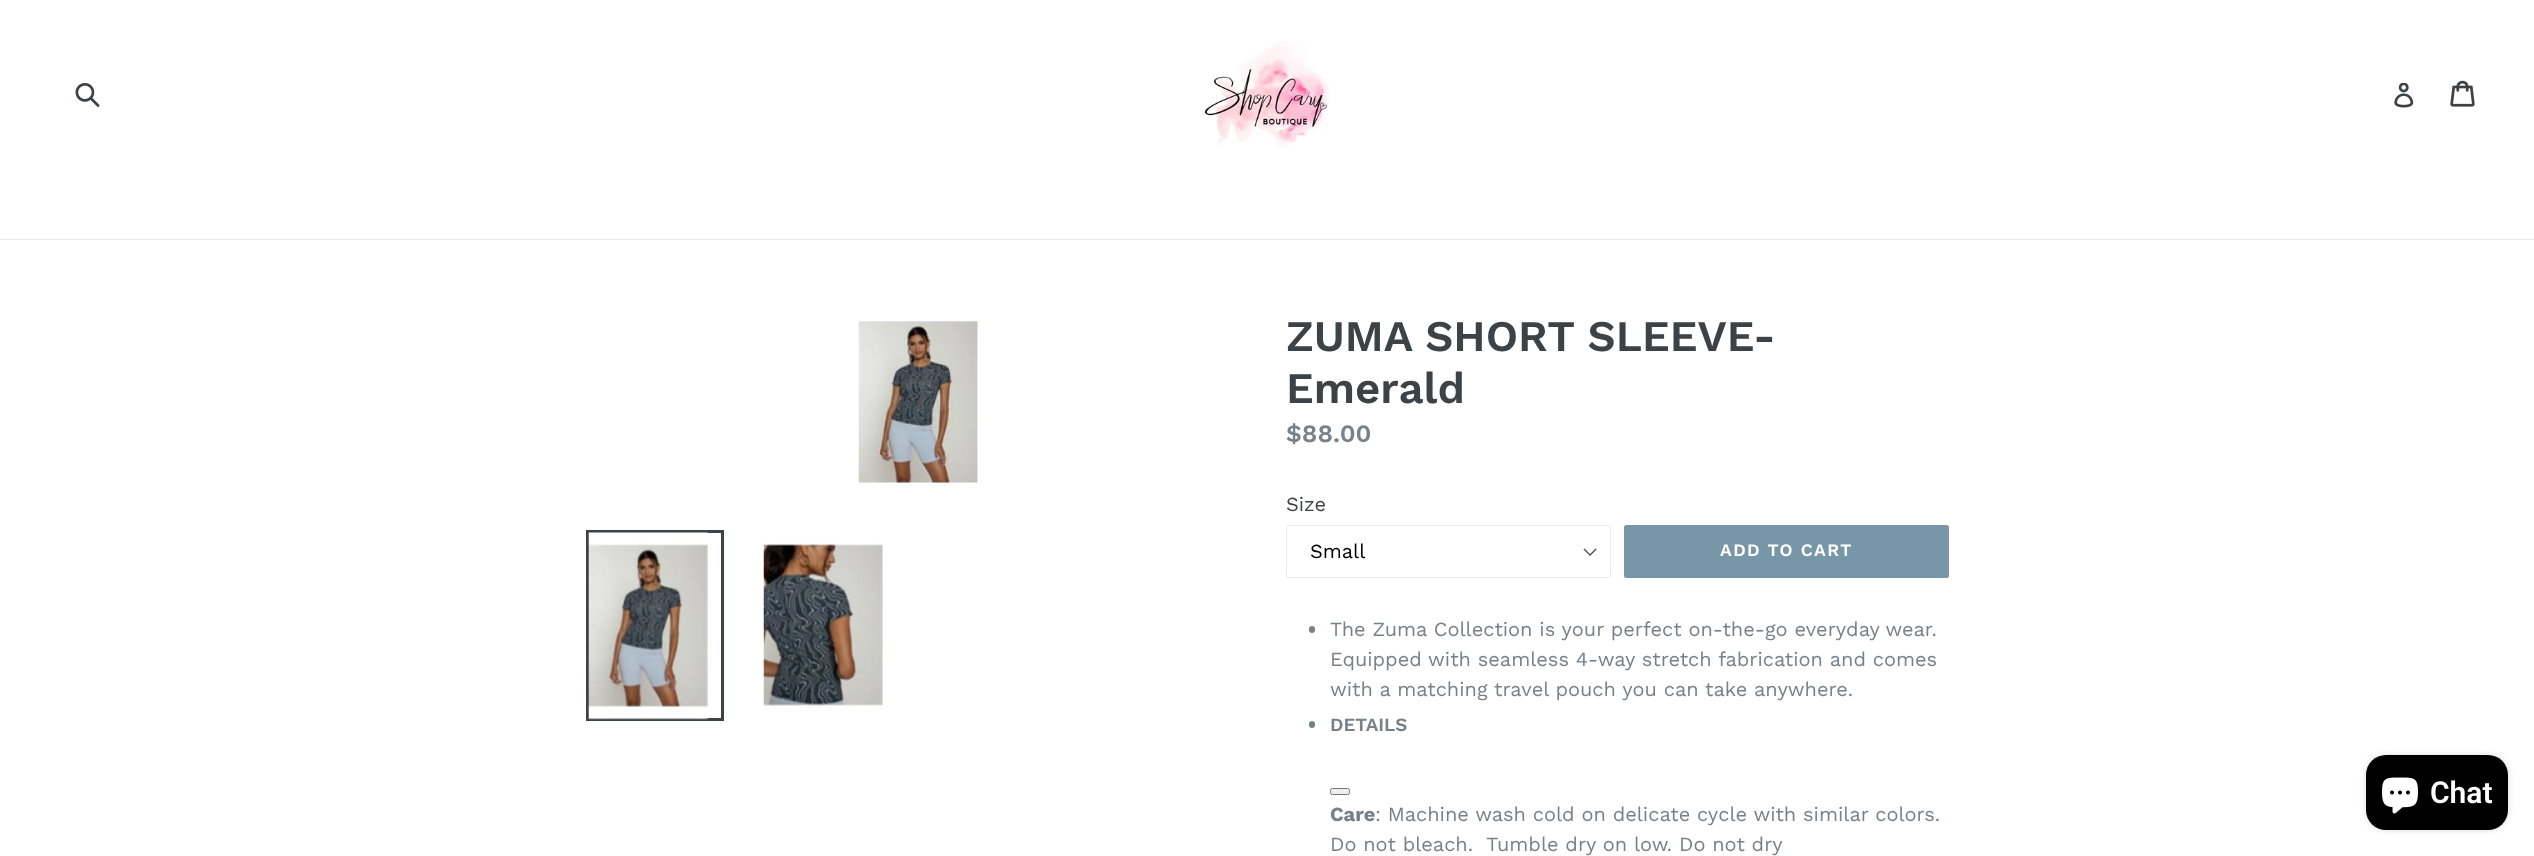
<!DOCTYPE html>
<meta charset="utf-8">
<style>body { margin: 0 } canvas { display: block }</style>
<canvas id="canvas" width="2534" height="856"></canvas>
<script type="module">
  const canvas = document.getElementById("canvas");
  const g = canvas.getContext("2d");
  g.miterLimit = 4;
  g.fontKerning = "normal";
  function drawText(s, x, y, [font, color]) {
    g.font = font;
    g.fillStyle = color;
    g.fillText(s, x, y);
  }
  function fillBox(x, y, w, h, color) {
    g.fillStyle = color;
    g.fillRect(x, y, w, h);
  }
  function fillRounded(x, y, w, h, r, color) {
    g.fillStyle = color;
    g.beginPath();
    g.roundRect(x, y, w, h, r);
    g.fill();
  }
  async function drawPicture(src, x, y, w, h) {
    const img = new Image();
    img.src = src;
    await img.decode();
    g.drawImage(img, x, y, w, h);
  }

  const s1 = ["600 43.75px Work Sans", "#3D4246"];
  const s2 = ["600 25px Work Sans", "#788188"];
  const s3 = ["20px Work Sans", "#3D4246"];
  const s4 = ["20px Work Sans", "#000000"];
  const s5 = ["600 17.5px Work Sans", "#FFFFFF"];
  const s6 = ["20px Work Sans", "#788188"];
  const s7 = ["600 18.75px Work Sans", "#788188"];
  const s8 = ["bold 20px Work Sans", "#788188"];
  const s9 = ["600 30px Roboto", "#FFFFFF"];

  fillBox(0, 0, 2534, 856, "#FFFFFF");
  await drawPicture("pic1.png", 75, 83, 25, 24);
  await drawPicture("pic2.png", 1205, 41, 125, 107);
  await drawPicture("pic3.png", 2394, 83, 20, 25);
  await drawPicture("pic4.png", 2450, 80, 25, 27);
  fillBox(0, 239, 2534, 1, "#E8E9EB");
  await drawPicture("pic5.png", 858, 321, 120, 168);
  g.strokeStyle = "#3D4246";
  g.lineWidth = 3;
  g.strokeRect(587.5, 531.5, 135, 188);
  await drawPicture("pic6.png", 588, 532, 120, 188);
  await drawPicture("pic7.png", 763, 543, 120, 168);
  drawText("ZUMA SHORT SLEEVE-", 1286, 351, s1);
  drawText("Emerald", 1286, 403, s1);
  drawText("$88.00", 1286, 442, s2);
  drawText("Size", 1286, 511, s3);
  await drawPicture("pic8.png", 1583, 548, 14, 8);
  g.beginPath();
  g.roundRect(1286.5, 525.5, 324, 52, 2);
  g.strokeStyle = "#E8E9EB";
  g.lineWidth = 1;
  g.stroke();
  drawText("Small", 1310, 558, s4);
  fillRounded(1624, 525, 325, 53, 2.5, "#7796A8");
  g.letterSpacing = "1.4px";
  drawText("ADD TO CART", 1720, 556, s5);
  fillRounded(1309, 626, 6, 7, 3, "#788188");
  g.letterSpacing = "0px";
  drawText("The Zuma Collection is your perfect on-the-go everyday wear.", 1330, 636, s6);
  drawText("Equipped with seamless 4-way stretch fabrication and comes", 1330, 666, s6);
  drawText("with a matching travel pouch you can take anywhere.", 1330, 696, s6);
  fillRounded(1309, 721, 6, 7, 3, "#788188");
  drawText("DETAILS", 1330, 731, s7);
  g.fillStyle = "#EFEFEF";
  g.beginPath();
  g.roundRect(1330.5, 788.5, 19, 6, 2);
  g.fill();
  g.strokeStyle = "#767676";
  g.stroke();
  drawText("Care", 1330, 821, s8);
  drawText(": Machine wash cold on delicate cycle with similar colors.", 1375, 821, s6);
  drawText("Do not bleach.  Tumble dry on low. Do not dry", 1330, 851, s6);
  g.fillStyle = "rgba(0, 0, 0, 0.15)";
  g.filter = "blur(3px)";
  g.beginPath();
  g.roundRect(2366, 755, 142, 75, 20);
  g.fill();
  g.filter = "none";
  fillRounded(2366, 755, 142, 75, 20, "#000000");
  await drawPicture("pic9.png", 2382, 777, 36, 37);
  drawText("Chat", 2430, 803, s9);
</script>
